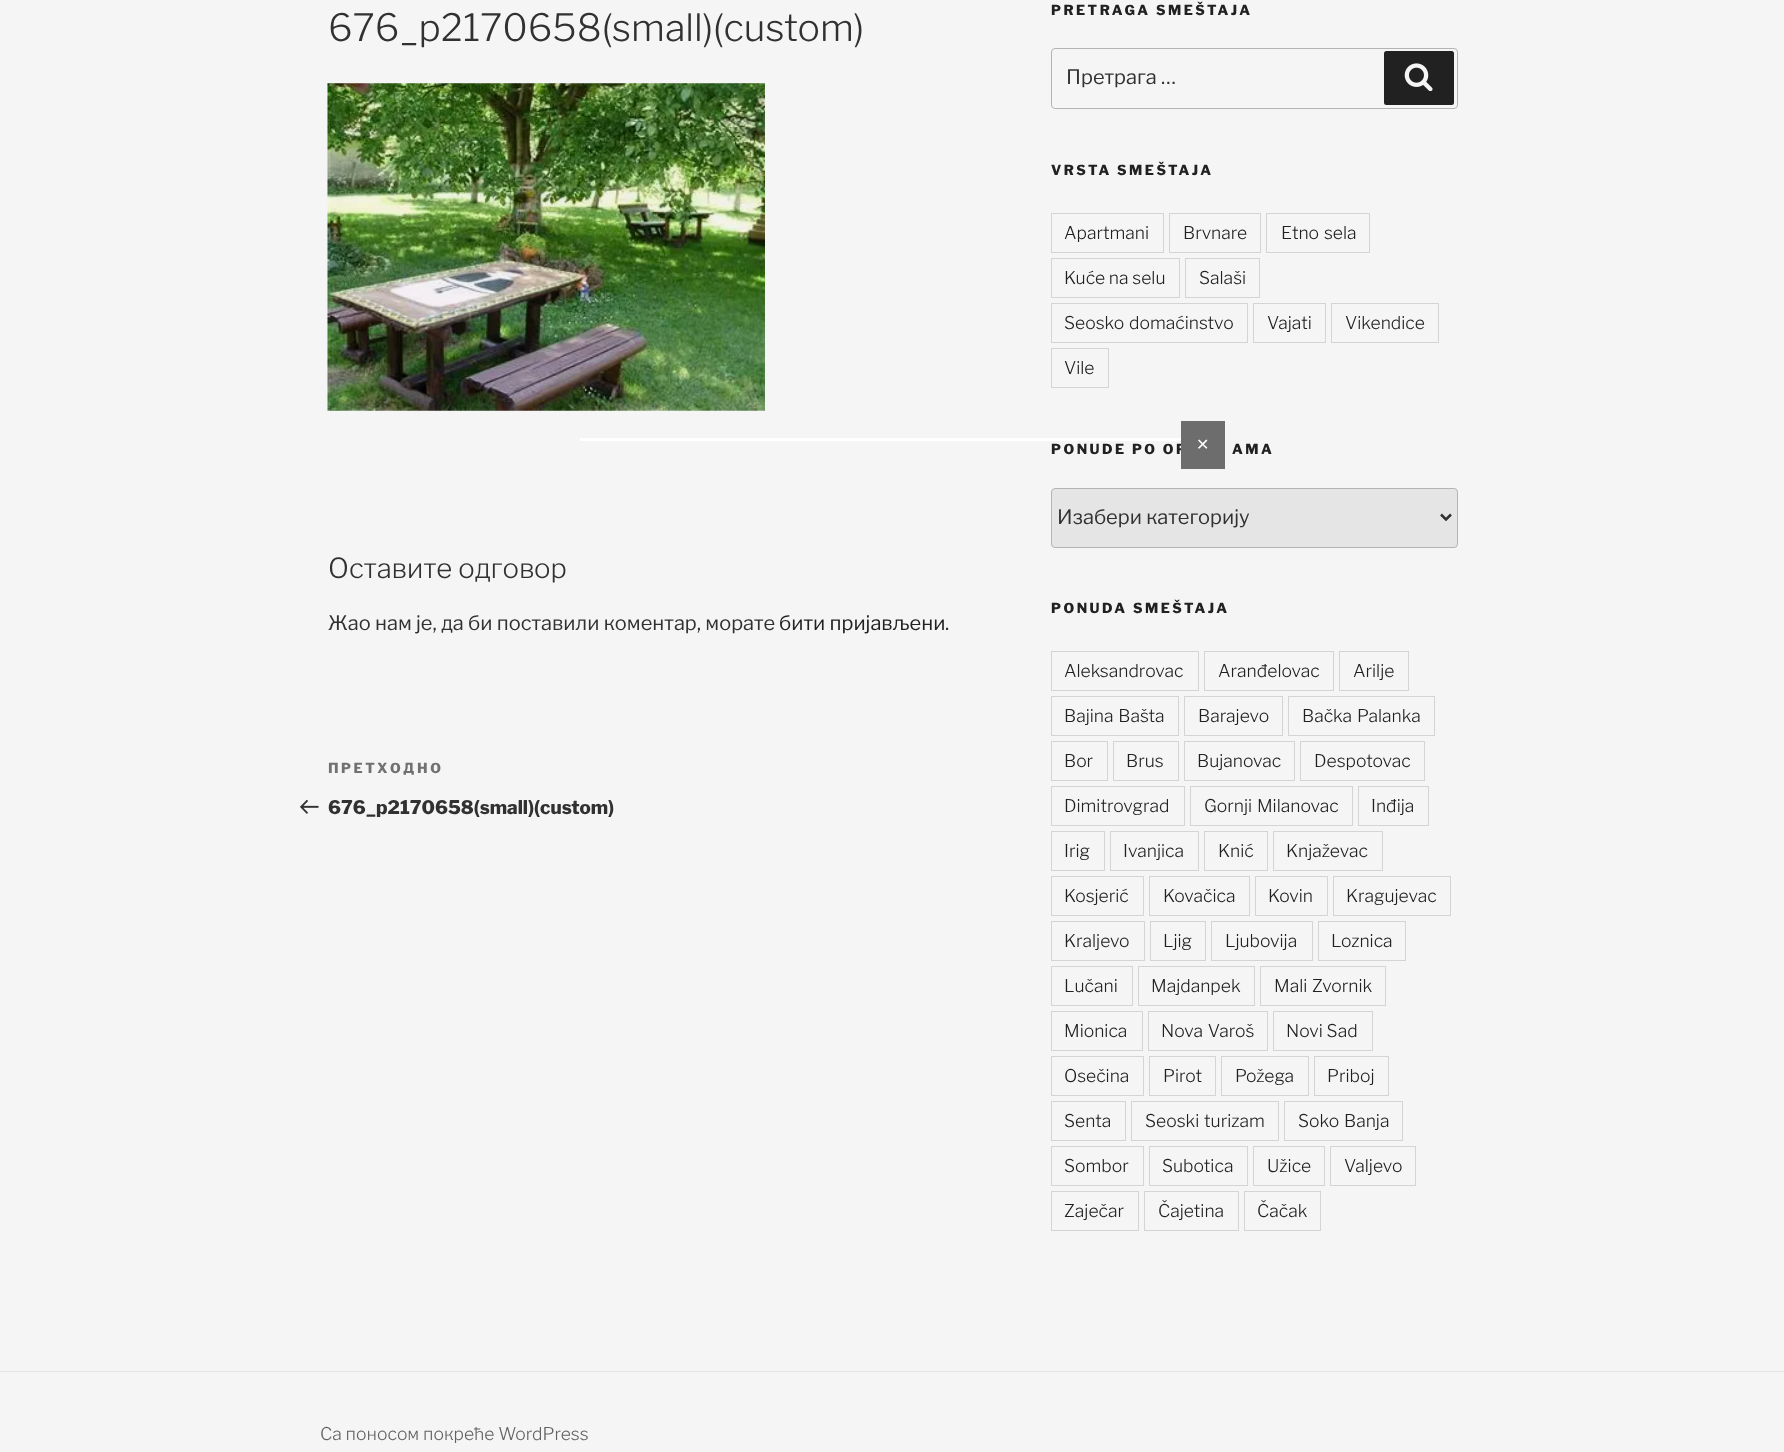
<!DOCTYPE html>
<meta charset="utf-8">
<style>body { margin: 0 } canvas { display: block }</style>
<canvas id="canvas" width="1784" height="1452"></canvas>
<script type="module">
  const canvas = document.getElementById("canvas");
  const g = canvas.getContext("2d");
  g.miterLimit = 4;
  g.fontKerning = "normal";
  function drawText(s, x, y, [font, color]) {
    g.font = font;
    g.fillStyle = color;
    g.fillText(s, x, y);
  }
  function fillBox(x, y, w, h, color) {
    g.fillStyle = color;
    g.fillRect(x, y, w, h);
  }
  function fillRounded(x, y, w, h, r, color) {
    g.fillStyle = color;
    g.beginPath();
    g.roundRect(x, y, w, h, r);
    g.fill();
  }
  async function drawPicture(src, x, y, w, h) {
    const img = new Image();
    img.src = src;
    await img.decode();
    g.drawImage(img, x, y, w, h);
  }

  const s1 = ["300 37.5px Libre Franklin", "#313131"];
  const s2 = ["300 27.5px Libre Franklin", "#313131"];
  const s3 = ["20px Libre Franklin", "#313131"];
  const s4 = ["20px Libre Franklin", "#212121"];
  const s5 = ["800 13.75px Libre Franklin", "#717171"];
  const s6 = ["800 18.75px Libre Franklin", "#313131"];
  const s7 = ["800 13.75px Libre Franklin", "#212121"];
  const s8 = ["300 17.5px Libre Franklin", "#212121"];
  const s9 = ["300 17.5px Libre Franklin", "#626262"];
  const s10 = ["16px DejaVu Sans", "#FFFFFF"];

  fillBox(0, 0, 1784, 1452, "#F5F5F5");
  drawText("676_p2170658(small)(custom)", 328, 41, s1);
  await drawPicture("pic1.png", 327, 83, 438, 328);
  drawText("Оставите одговор", 328, 578, s2);
  drawText("Жао нам је, да би поставили коментар, морате", 328, 630, s3);
  drawText("бити пријављени", 779, 630, s4);
  drawText(".", 945, 630, s3);
  g.letterSpacing = "2.5px";
  drawText("ПРЕТХОДНО", 328, 773, s5);
  await drawPicture("pic2.png", 300, 800, 19, 14);
  g.letterSpacing = "0px";
  drawText("676_p2170658(small)(custom)", 328, 814, s6);
  g.letterSpacing = "2.5px";
  drawText("PRETRAGA SMEŠTAJA", 1051, 15, s7);
  g.beginPath();
  g.roundRect(1051.5, 48.5, 406, 60, 3.5);
  g.strokeStyle = "#B4B4B4";
  g.stroke();
  g.letterSpacing = "0px";
  drawText("Претрага …", 1066, 84, s3);
  fillRounded(1384, 51, 70, 54, 2.5, "#212121");
  await drawPicture("pic3.png", 1404, 63, 29, 28);
  g.letterSpacing = "2.5px";
  drawText("VRSTA SMEŠTAJA", 1051, 175, s7);
  g.strokeStyle = "#D4D4D4";
  g.strokeRect(1051.5, 213.5, 112, 39);
  g.letterSpacing = "0px";
  drawText("Apartmani", 1064, 239, s8);
  g.strokeRect(1169.5, 213.5, 91, 39);
  drawText("Brvnare", 1183, 239, s8);
  g.strokeRect(1266.5, 213.5, 103, 39);
  g.wordSpacing = "1px";
  drawText("Etno sela", 1281, 239, s8);
  g.strokeRect(1051.5, 258.5, 128, 39);
  g.wordSpacing = "0px";
  drawText("Kuće na selu", 1064, 284, s8);
  g.strokeRect(1185.5, 258.5, 74, 39);
  drawText("Salaši", 1199, 284, s8);
  g.strokeRect(1051.5, 303.5, 196, 39);
  g.wordSpacing = "1px";
  drawText("Seosko domaćinstvo", 1064, 329, s8);
  g.strokeRect(1253.5, 303.5, 72, 39);
  g.wordSpacing = "0px";
  drawText("Vajati", 1267, 329, s8);
  g.strokeRect(1331.5, 303.5, 107, 39);
  drawText("Vikendice", 1345, 329, s8);
  g.strokeRect(1051.5, 348.5, 57, 39);
  drawText("Vile", 1064, 374, s8);
  g.letterSpacing = "2.5px";
  drawText("PONUDE PO OP", 1051, 454, s7);
  drawText("AMA", 1232, 454, s7);
  g.fillStyle = "#E5E5E5";
  g.beginPath();
  g.roundRect(1051.5, 488.5, 406, 59, 3.5);
  g.fill();
  g.strokeStyle = "#B4B4B4";
  g.stroke();
  g.beginPath();
  g.moveTo(1441, 514.5);
  g.lineTo(1446, 519.5);
  g.lineTo(1451, 514.5);
  g.strokeStyle = "#313131";
  g.lineWidth = 2.5;
  g.stroke();
  g.letterSpacing = "0px";
  drawText("Изабери категорију", 1057, 524, s3);
  g.letterSpacing = "2.5px";
  drawText("PONUDA SMEŠTAJA", 1051, 613, s7);
  g.strokeStyle = "#D4D4D4";
  g.lineWidth = 1;
  g.strokeRect(1051.5, 651.5, 147, 39);
  g.letterSpacing = "0px";
  drawText("Aleksandrovac", 1064, 677, s8);
  g.strokeRect(1204.5, 651.5, 129, 39);
  drawText("Aranđelovac", 1218, 677, s8);
  g.strokeRect(1339.5, 651.5, 69, 39);
  drawText("Arilje", 1353, 677, s8);
  g.strokeRect(1051.5, 696.5, 127, 39);
  g.wordSpacing = "1px";
  drawText("Bajina Bašta", 1064, 722, s8);
  g.strokeRect(1184.5, 696.5, 98, 39);
  g.wordSpacing = "0px";
  drawText("Barajevo", 1198, 722, s8);
  g.strokeRect(1288.5, 696.5, 146, 39);
  g.wordSpacing = "1px";
  drawText("Bačka Palanka", 1302, 722, s8);
  g.strokeRect(1051.5, 741.5, 56, 39);
  g.wordSpacing = "0px";
  drawText("Bor", 1064, 767, s8);
  g.strokeRect(1113.5, 741.5, 65, 39);
  drawText("Brus", 1126, 767, s8);
  g.strokeRect(1184.5, 741.5, 110, 39);
  drawText("Bujanovac", 1197, 767, s8);
  g.strokeRect(1300.5, 741.5, 124, 39);
  drawText("Despotovac", 1314, 767, s8);
  g.strokeRect(1051.5, 786.5, 133, 39);
  drawText("Dimitrovgrad", 1064, 812, s8);
  g.strokeRect(1190.5, 786.5, 162, 39);
  g.wordSpacing = "1px";
  drawText("Gornji Milanovac", 1204, 812, s8);
  g.strokeRect(1358.5, 786.5, 70, 39);
  g.wordSpacing = "0px";
  drawText("Inđija", 1371, 812, s8);
  g.strokeRect(1051.5, 831.5, 53, 39);
  drawText("Irig", 1064, 857, s8);
  g.strokeRect(1110.5, 831.5, 88, 39);
  drawText("Ivanjica", 1123, 857, s8);
  g.strokeRect(1204.5, 831.5, 63, 39);
  drawText("Knić", 1218, 857, s8);
  g.strokeRect(1273.5, 831.5, 109, 39);
  drawText("Knjaževac", 1286, 857, s8);
  g.strokeRect(1051.5, 876.5, 92, 39);
  drawText("Kosjerić", 1064, 902, s8);
  g.strokeRect(1149.5, 876.5, 100, 39);
  drawText("Kovačica", 1163, 902, s8);
  g.strokeRect(1255.5, 876.5, 72, 39);
  drawText("Kovin", 1268, 902, s8);
  g.strokeRect(1333.5, 876.5, 117, 39);
  drawText("Kragujevac", 1346, 902, s8);
  g.strokeRect(1051.5, 921.5, 93, 39);
  drawText("Kraljevo", 1064, 947, s8);
  g.strokeRect(1150.5, 921.5, 55, 39);
  drawText("Ljig", 1163, 947, s8);
  g.strokeRect(1211.5, 921.5, 101, 39);
  drawText("Ljubovija", 1225, 947, s8);
  g.strokeRect(1318.5, 921.5, 87, 39);
  drawText("Loznica", 1331, 947, s8);
  g.strokeRect(1051.5, 966.5, 81, 39);
  drawText("Lučani", 1064, 992, s8);
  g.strokeRect(1138.5, 966.5, 116, 39);
  drawText("Majdanpek", 1151, 992, s8);
  g.strokeRect(1260.5, 966.5, 125, 39);
  g.wordSpacing = "1px";
  drawText("Mali Zvornik", 1274, 992, s8);
  g.strokeRect(1051.5, 1011.5, 91, 39);
  g.wordSpacing = "0px";
  drawText("Mionica", 1064, 1037, s8);
  g.strokeRect(1148.5, 1011.5, 119, 39);
  g.wordSpacing = "1px";
  drawText("Nova Varoš", 1161, 1037, s8);
  g.strokeRect(1273.5, 1011.5, 99, 39);
  g.wordSpacing = "0px";
  drawText("Novi Sad", 1286, 1037, s8);
  g.strokeRect(1051.5, 1056.5, 92, 39);
  drawText("Osečina", 1064, 1082, s8);
  g.strokeRect(1149.5, 1056.5, 66, 39);
  drawText("Pirot", 1163, 1082, s8);
  g.strokeRect(1221.5, 1056.5, 87, 39);
  drawText("Požega", 1235, 1082, s8);
  g.strokeRect(1314.5, 1056.5, 74, 39);
  drawText("Priboj", 1327, 1082, s8);
  g.strokeRect(1051.5, 1101.5, 74, 39);
  drawText("Senta", 1064, 1127, s8);
  g.strokeRect(1131.5, 1101.5, 147, 39);
  g.wordSpacing = "1px";
  drawText("Seoski turizam", 1145, 1127, s8);
  g.strokeRect(1284.5, 1101.5, 118, 39);
  drawText("Soko Banja", 1298, 1127, s8);
  g.strokeRect(1051.5, 1146.5, 92, 39);
  g.wordSpacing = "0px";
  drawText("Sombor", 1064, 1172, s8);
  g.strokeRect(1149.5, 1146.5, 98, 39);
  drawText("Subotica", 1162, 1172, s8);
  g.strokeRect(1253.5, 1146.5, 71, 39);
  drawText("Užice", 1267, 1172, s8);
  g.strokeRect(1330.5, 1146.5, 85, 39);
  drawText("Valjevo", 1344, 1172, s8);
  g.strokeRect(1051.5, 1191.5, 87, 39);
  drawText("Zaječar", 1064, 1217, s8);
  g.strokeRect(1144.5, 1191.5, 94, 39);
  drawText("Čajetina", 1158, 1217, s8);
  g.strokeRect(1244.5, 1191.5, 76, 39);
  drawText("Čačak", 1257, 1217, s8);
  fillBox(0, 1371, 1784, 1, "#E4E4E4");
  drawText("Са поносом покреће WordPress", 320, 1440, s9);
  fillBox(580, 438, 601, 3, "#FFFFFF");
  fillBox(1181, 421, 44, 48, "#6D6D6D");
  drawText("✕", 1196, 450, s10);
</script>
